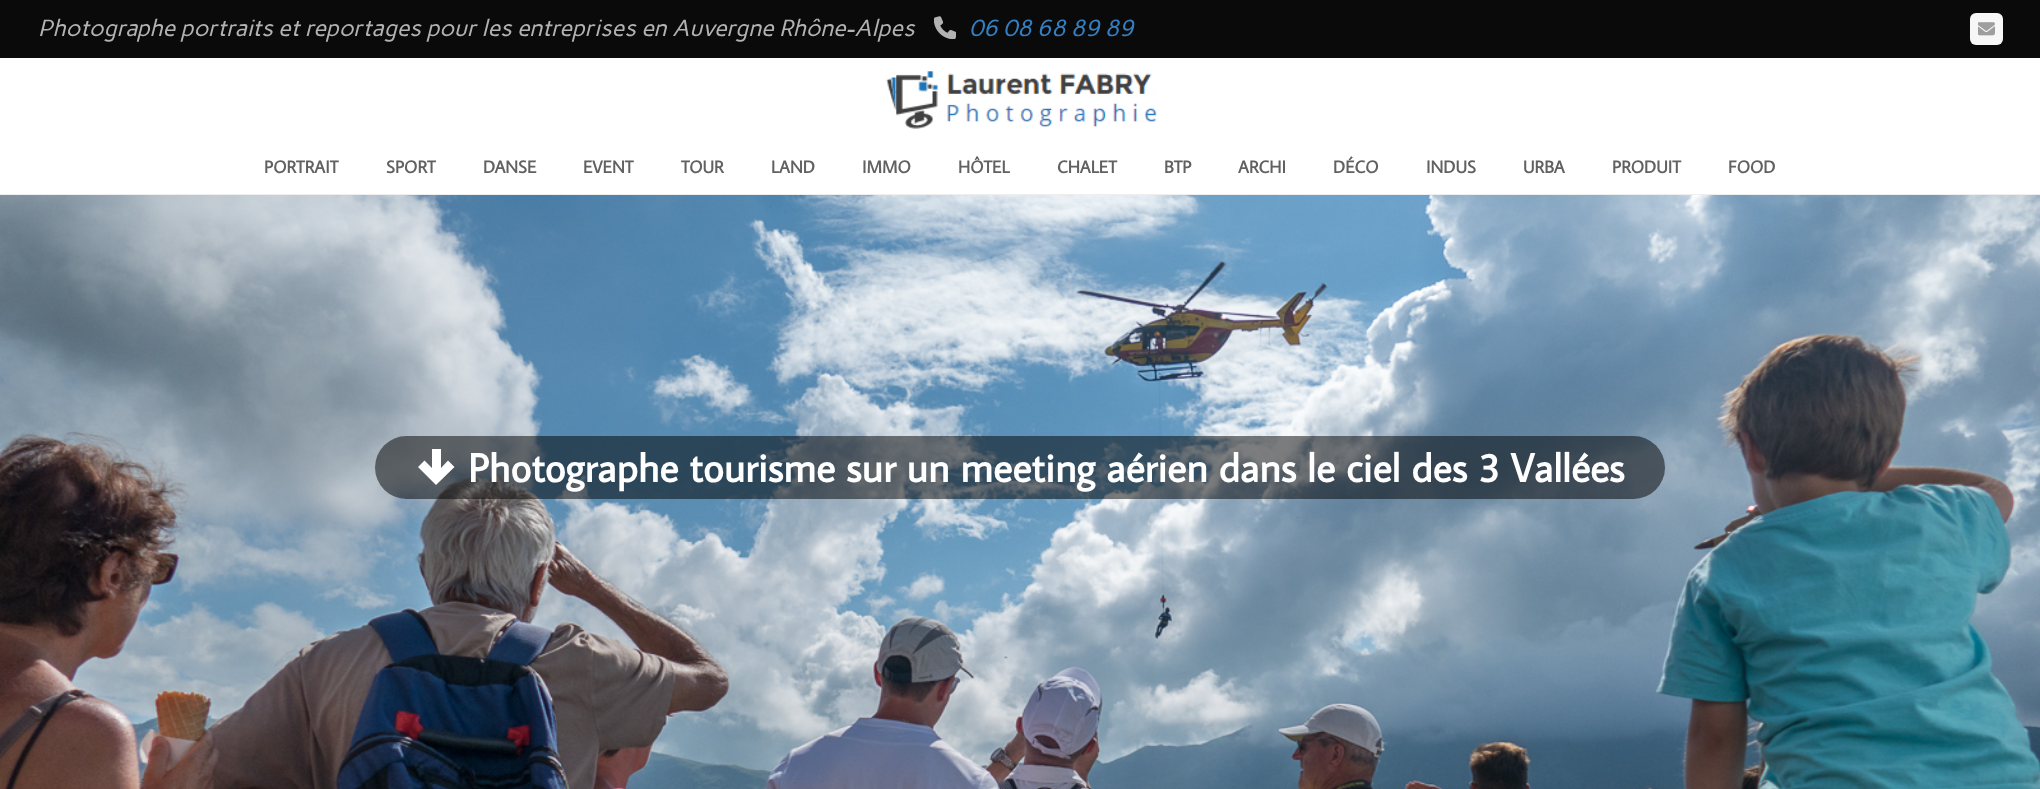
<!DOCTYPE html>
<meta charset="utf-8">
<style>body { margin: 0 } canvas { display: block }</style>
<canvas id="canvas" width="2040" height="789"></canvas>
<script type="module">
  const canvas = document.getElementById("canvas");
  const g = canvas.getContext("2d");
  g.miterLimit = 4;
  g.fontKerning = "normal";
  function drawText(s, x, y, [font, color]) {
    g.font = font;
    g.fillStyle = color;
    g.fillText(s, x, y);
  }
  function fillBox(x, y, w, h, color) {
    g.fillStyle = color;
    g.fillRect(x, y, w, h);
  }
  function fillRounded(x, y, w, h, r, color) {
    g.fillStyle = color;
    g.beginPath();
    g.roundRect(x, y, w, h, r);
    g.fill();
  }
  async function drawPicture(src, x, y, w, h) {
    const img = new Image();
    img.src = src;
    await img.decode();
    g.drawImage(img, x, y, w, h);
  }

  const s1 = ["italic 23.1px Carme", "#B2B2B2"];
  const s2 = ["italic 23.1px Carme", "#357EBF"];
  const s3 = ["bold 17.5px Average Sans", "#616161"];
  const s4 = ["bold 40.4px Average Sans", "#FFFFFF"];

  fillBox(0, 0, 2040, 789, "#FFFFFF");
  fillBox(0, 0, 2040, 58, "#0A0A0A");
  drawText("Photographe portraits et reportages pour les entreprises en Auvergne Rhône-Alpes", 38, 36, s1);
  await drawPicture("pic1.png", 934, 16, 22, 23);
  drawText("06 08 68 89 89", 969, 36, s2);
  fillRounded(1970, 13, 33, 32, 6, "#F7F7F7");
  await drawPicture("pic2.png", 1978, 22, 17, 14);
  await drawPicture("pic3.png", 886, 71, 271, 58);
  fillBox(0, 194, 2040, 1, "#EEEEEE");
  drawText("PORTRAIT", 264, 173, s3);
  drawText("SPORT", 386, 173, s3);
  drawText("DANSE", 483, 173, s3);
  drawText("EVENT", 583, 173, s3);
  drawText("TOUR", 681, 173, s3);
  drawText("LAND", 771, 173, s3);
  drawText("IMMO", 862, 173, s3);
  drawText("HÔTEL", 958, 173, s3);
  drawText("CHALET", 1057, 173, s3);
  drawText("BTP", 1164, 173, s3);
  drawText("ARCHI", 1238, 173, s3);
  drawText("DÉCO", 1333, 173, s3);
  drawText("INDUS", 1426, 173, s3);
  drawText("URBA", 1523, 173, s3);
  drawText("PRODUIT", 1612, 173, s3);
  drawText("FOOD", 1728, 173, s3);
  await drawPicture("pic4.png", 0, 195, 2040, 594);
  fillRounded(375, 436, 1290, 63, 31.5, "rgba(0, 0, 0, 0.5)");
  g.fillStyle = "#FFFFFF";
  g.beginPath();
  g.moveTo(454.5, 467);
  g.lineTo(436, 485);
  g.lineTo(418, 467);
  g.lineTo(424.5, 460.5);
  g.lineTo(432, 468);
  g.lineTo(432, 449);
  g.lineTo(441, 449);
  g.lineTo(441, 468);
  g.lineTo(448, 460.5);
  g.closePath();
  g.fill();
  drawText("Photographe tourisme sur un meeting aérien dans le ciel des 3 Vallées", 468, 482, s4);
</script>
